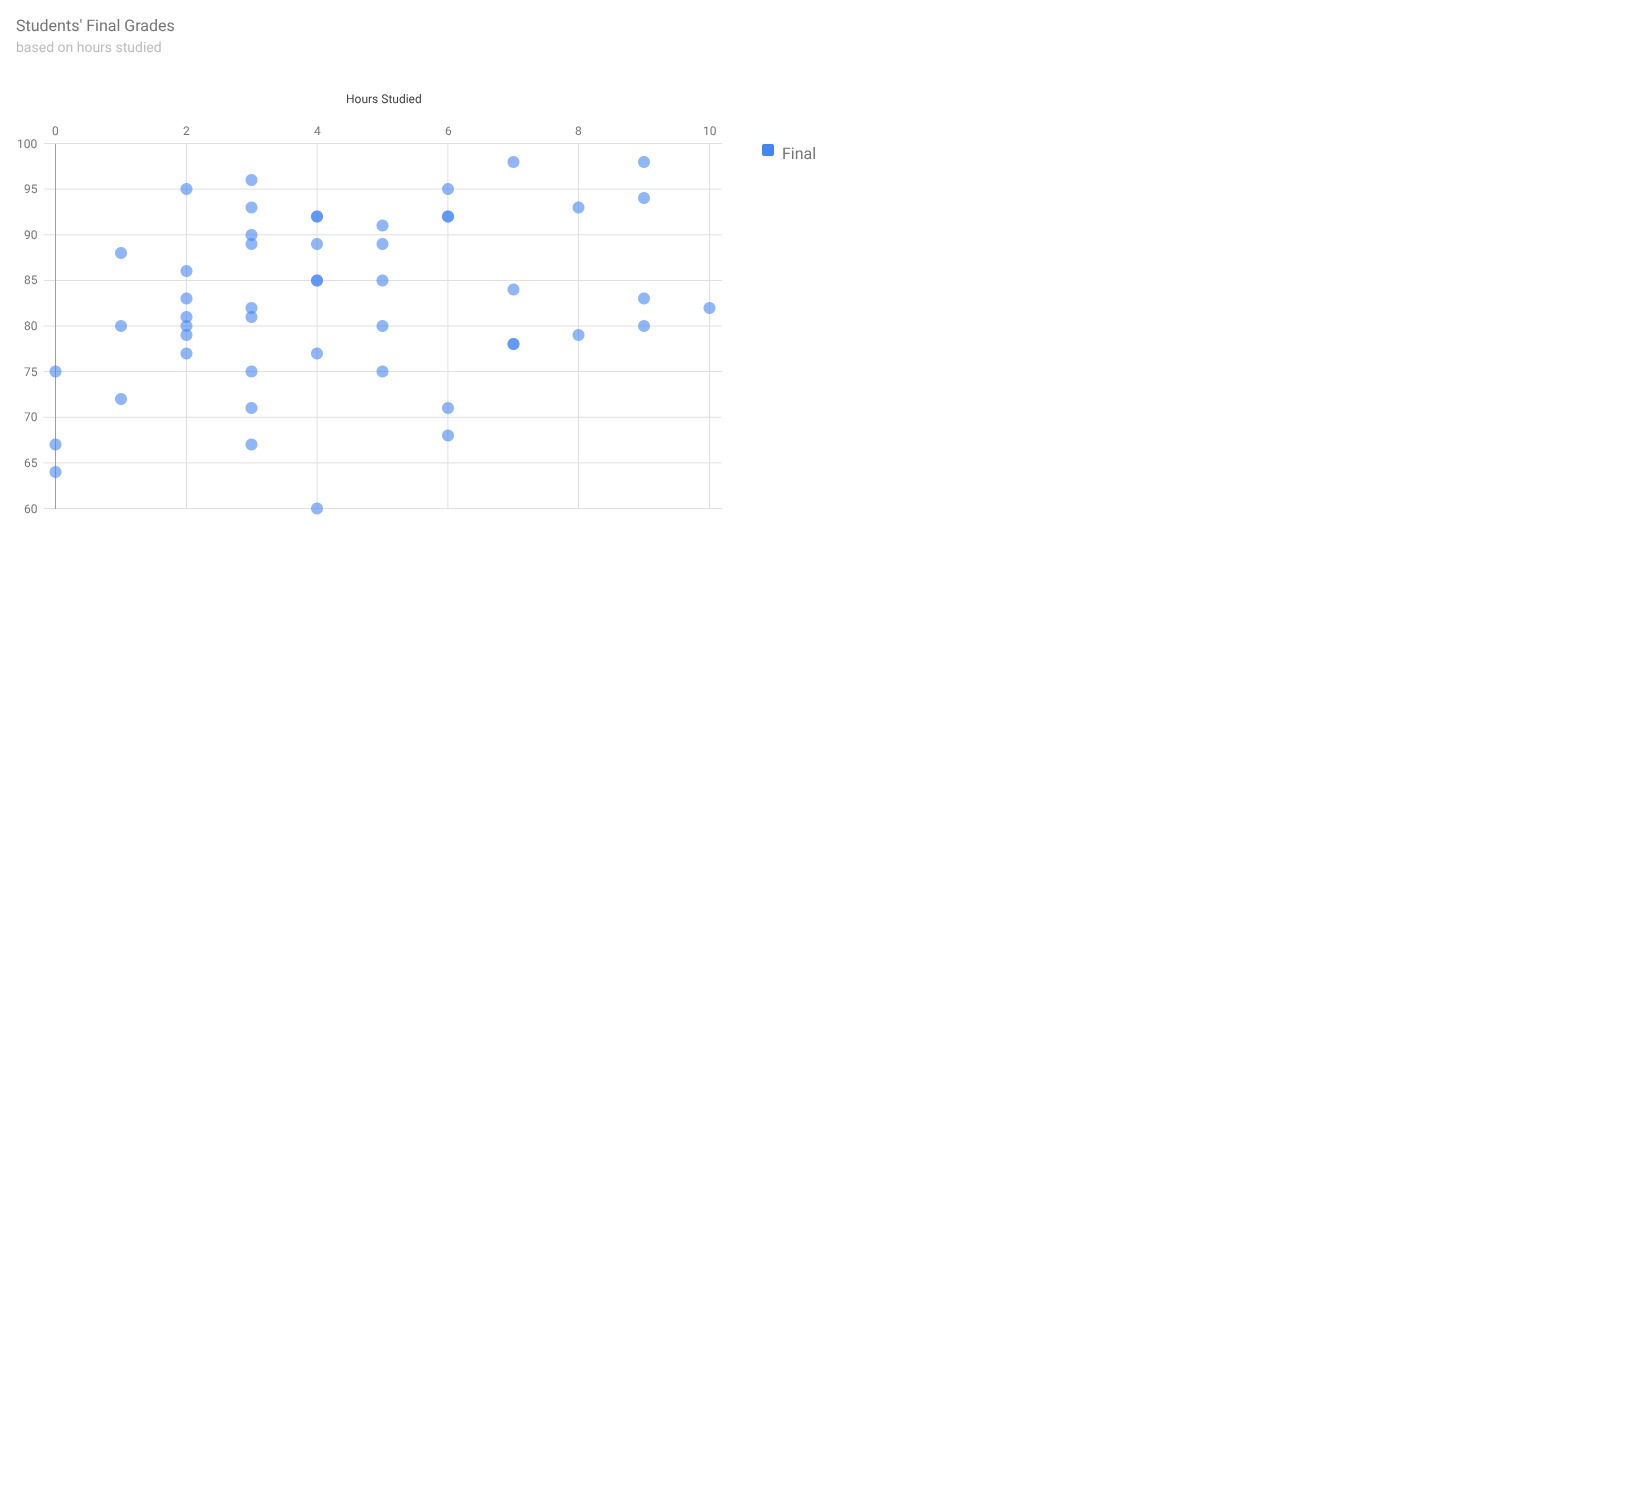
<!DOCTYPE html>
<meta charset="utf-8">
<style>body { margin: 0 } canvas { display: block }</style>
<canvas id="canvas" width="1628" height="1489"></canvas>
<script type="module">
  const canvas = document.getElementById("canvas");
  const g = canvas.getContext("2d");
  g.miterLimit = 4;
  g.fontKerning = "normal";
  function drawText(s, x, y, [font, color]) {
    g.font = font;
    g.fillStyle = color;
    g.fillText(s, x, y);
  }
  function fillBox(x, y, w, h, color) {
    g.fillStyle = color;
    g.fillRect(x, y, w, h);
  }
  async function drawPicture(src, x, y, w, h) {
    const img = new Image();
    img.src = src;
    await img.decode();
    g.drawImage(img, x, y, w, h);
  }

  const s1 = ["16px Roboto", "#757575"];
  const s2 = ["14px Roboto", "#BDBDBD"];
  const s3 = ["12px Roboto", "#424242"];
  const s4 = ["12px Roboto", "#757575"];

  fillBox(0, 0, 1628, 1489, "#FFFFFF");
  drawText("Students' Final Grades", 16, 31, s1);
  drawText("based on hours studied", 16, 52, s2);
  drawText("Hours Studied", 346, 103, s3);
  drawText("0", 52, 135, s4);
  drawText("2", 183, 135, s4);
  drawText("4", 314, 135, s4);
  drawText("6", 445, 135, s4);
  drawText("8", 575, 135, s4);
  drawText("10", 703, 135, s4);
  drawText("100", 17, 148, s4);
  await drawPicture("pic1.png", 43, 143, 731, 372);
  drawText("Final", 782, 159, s1);
  drawText("95", 24, 193, s4);
  drawText("90", 24, 239, s4);
  drawText("85", 24, 284, s4);
  drawText("80", 24, 330, s4);
  drawText("75", 24, 376, s4);
  drawText("70", 24, 421, s4);
  drawText("65", 24, 467, s4);
  drawText("60", 24, 513, s4);
</script>
